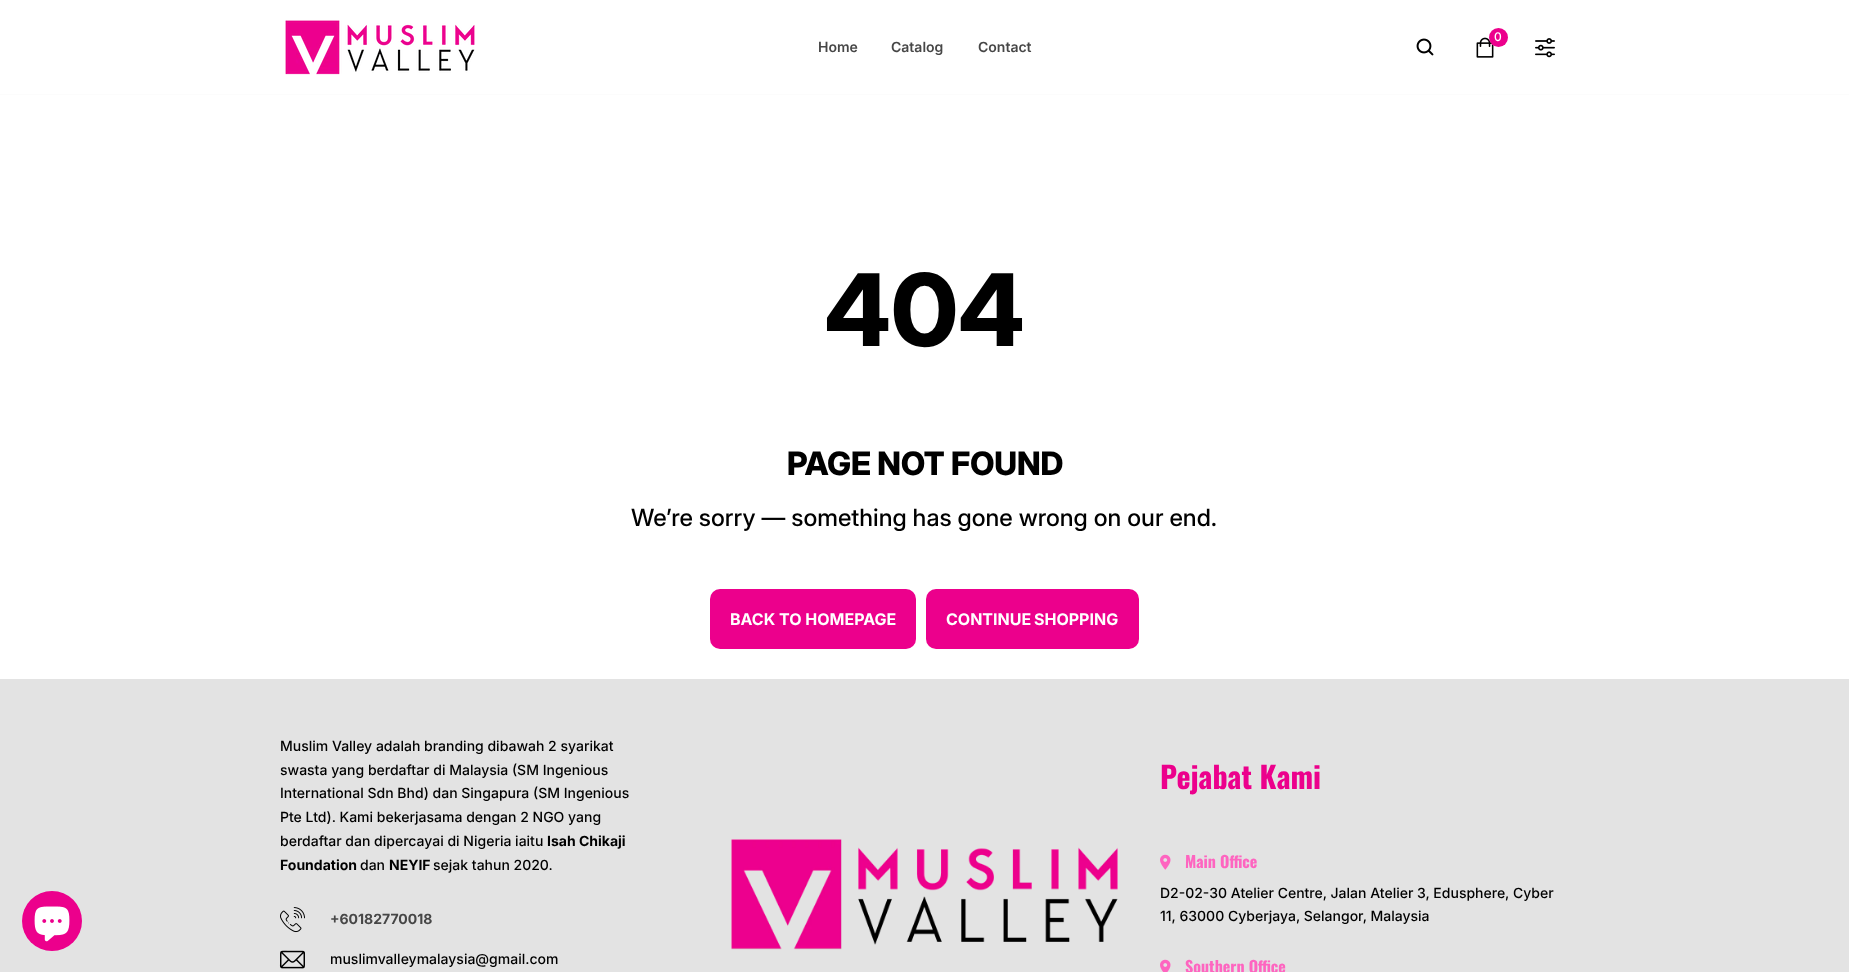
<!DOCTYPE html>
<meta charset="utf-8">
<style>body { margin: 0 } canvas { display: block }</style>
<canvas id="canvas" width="1849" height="972"></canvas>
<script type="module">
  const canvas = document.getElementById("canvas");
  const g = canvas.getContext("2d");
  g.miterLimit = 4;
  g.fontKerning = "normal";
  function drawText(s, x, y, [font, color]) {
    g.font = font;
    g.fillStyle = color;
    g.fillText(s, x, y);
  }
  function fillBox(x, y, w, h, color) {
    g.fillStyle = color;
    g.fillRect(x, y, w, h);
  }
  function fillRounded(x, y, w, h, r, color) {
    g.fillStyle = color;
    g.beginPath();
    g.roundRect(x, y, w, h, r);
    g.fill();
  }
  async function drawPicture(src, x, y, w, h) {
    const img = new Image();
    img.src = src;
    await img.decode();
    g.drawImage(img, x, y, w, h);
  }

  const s1 = ["500 12px 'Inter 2'", "#FFFFFF"];
  const s2 = ["600 14px Inter", "#474747"];
  const s3 = ["800 100px Inter", "#000000"];
  const s4 = ["800 32.25px Inter", "#000000"];
  const s5 = ["500 23.8px Inter", "#000000"];
  const s6 = ["bold 16px Inter", "#FFFFFF"];
  const s7 = ["500 14px 'Inter 2'", "#000000"];
  const s8 = ["bold 14px Inter", "#000000"];
  const s9 = ["bold 14px Inter", "#474747"];
  const s10 = ["bold 30px Oswald", "#EC008C"];
  const s11 = ["bold 16px Oswald", "#FE65C0"];

  fillBox(0, 0, 1849, 972, "#FFFFFF");
  fillBox(0, 94, 1849, 1, "#FCFCFC");
  await drawPicture("pic1.png", 285, 20, 190, 55);
  await drawPicture("pic2.png", 1476, 37, 18, 21);
  g.fillStyle = "#EC008C";
  g.beginPath();
  g.arc(1498.5, 37.5, 9.5, 0, Math.PI * 2);
  g.fill();
  drawText("0", 1494, 41, s1);
  await drawPicture("pic3.png", 1416, 38, 18, 18);
  await drawPicture("pic4.png", 1535, 38, 20, 20);
  drawText("Home", 818, 52, s2);
  drawText("Catalog", 891, 52, s2);
  drawText("Contact", 978, 52, s2);
  drawText("404", 824, 346, s3);
  drawText("PAGE NOT FOUND", 787, 475, s4);
  drawText("We’re sorry — something has gone wrong on our end.", 631, 526, s5);
  fillRounded(710, 589, 206, 60, 10, "#EC008C");
  drawText("BACK TO HOMEPAGE", 730, 625, s6);
  fillRounded(926, 589, 213, 60, 10, "#EC008C");
  g.wordSpacing = "-1px";
  drawText("CONTINUE SHOPPING", 946, 625, s6);
  fillBox(0, 679, 1849, 293, "#E3E3E3");
  g.fillStyle = "#EC008C";
  g.beginPath();
  g.arc(52, 921, 30, 0, Math.PI * 2);
  g.fill();
  await drawPicture("pic5.png", 34, 906, 36, 36);
  g.wordSpacing = "0px";
  drawText("Muslim Valley adalah branding dibawah 2 syarikat", 280, 751, s7);
  drawText("swasta yang berdaftar di Malaysia (SM Ingenious", 280, 775, s7);
  drawText("International Sdn Bhd) dan Singapura (SM Ingenious", 280, 798, s7);
  drawText("Pte Ltd). Kami bekerjasama dengan 2 NGO yang", 280, 822, s7);
  drawText("berdaftar dan dipercayai di Nigeria iaitu", 280, 846, s7);
  drawText("Isah Chikaji", 547, 846, s8);
  drawText("Foundation", 280, 870, s8);
  drawText("dan", 360, 870, s7);
  drawText("NEYIF", 389, 870, s8);
  drawText("sejak tahun 2020.", 433, 870, s7);
  await drawPicture("pic6.png", 280, 907, 25, 26);
  drawText("+60182770018", 330, 924, s9);
  await drawPicture("pic7.png", 279, 950, 26, 19);
  drawText("muslimvalleymalaysia@gmail.com", 330, 964, s7);
  await drawPicture("pic8.png", 731, 839, 387, 111);
  drawText("Pejabat Kami", 1160, 789, s10);
  await drawPicture("pic9.png", 1160, 854, 11, 16);
  drawText("Main Office", 1185, 868, s11);
  drawText("D2-02-30 Atelier Centre, Jalan Atelier 3, Edusphere, Cyber", 1160, 898, s7);
  drawText("11, 63000 Cyberjaya, Selangor, Malaysia", 1160, 921, s7);
  await drawPicture("pic10.png", 1160, 959, 11, 13);
  drawText("Southern Office", 1185, 973, s11);
</script>
